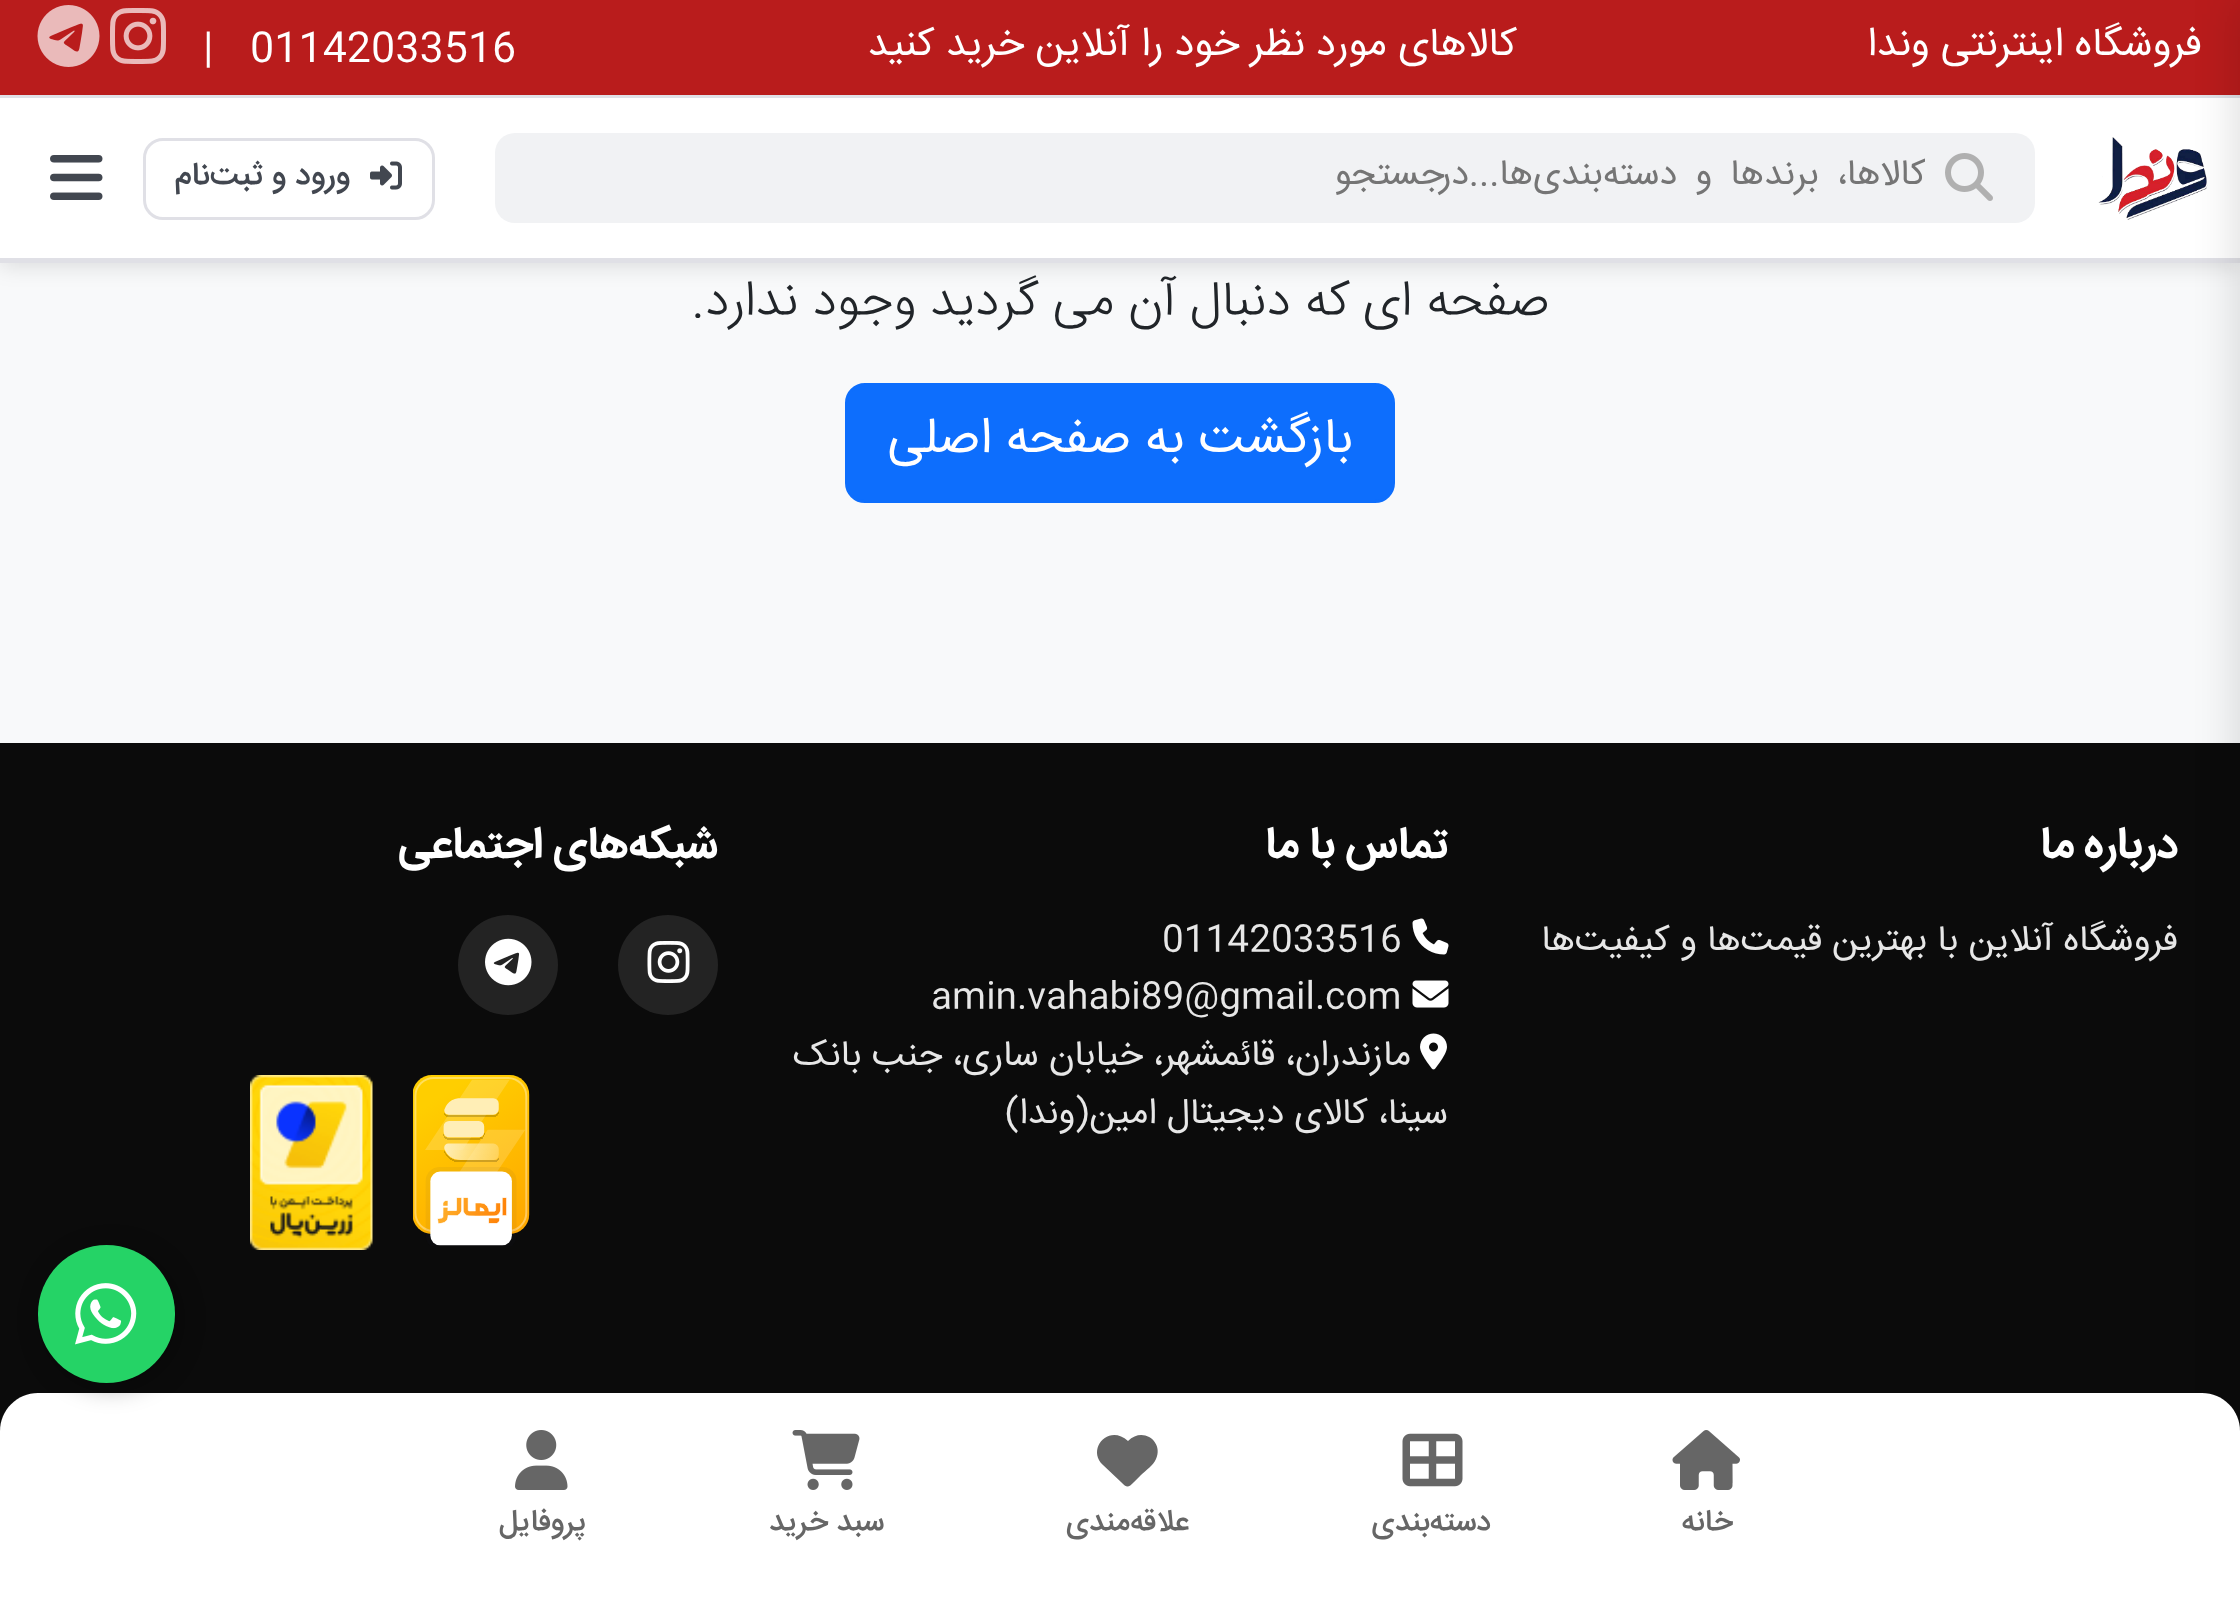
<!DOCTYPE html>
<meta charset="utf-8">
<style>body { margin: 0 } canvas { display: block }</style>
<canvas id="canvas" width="2240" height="1606"></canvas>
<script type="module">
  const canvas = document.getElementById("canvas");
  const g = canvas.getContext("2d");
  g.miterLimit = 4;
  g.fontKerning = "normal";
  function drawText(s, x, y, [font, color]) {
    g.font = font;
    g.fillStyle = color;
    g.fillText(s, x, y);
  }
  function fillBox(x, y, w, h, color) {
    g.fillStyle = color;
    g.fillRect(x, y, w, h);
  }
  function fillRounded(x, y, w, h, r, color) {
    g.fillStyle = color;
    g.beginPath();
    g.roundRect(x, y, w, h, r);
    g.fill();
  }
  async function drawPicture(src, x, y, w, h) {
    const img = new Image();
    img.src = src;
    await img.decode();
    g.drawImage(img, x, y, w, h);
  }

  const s1 = ["40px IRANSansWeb", "#FFFFFF"];
  const s2 = ["36px IRANSansWeb", "#757575"];
  const s3 = ["500 32px IRANSansWeb", "#424750"];
  const s4 = ["300 50px IRANSansWeb", "#212529"];
  const s5 = ["50px IRANSansWeb", "#FFFFFF"];
  const s6 = ["bold 44px IRANSansWeb", "#FFFFFF"];
  const s7 = ["36px IRANSansWeb", "#E7E7E7"];
  const s8 = ["500 30px IRANSansWeb", "#666666"];

  fillBox(0, 0, 2240, 1606, "#F8F9FA");
  g.fillStyle = "rgba(0, 0, 0, 0.1)";
  g.filter = "blur(10px)";
  g.beginPath();
  g.rect(0, 5, 2240, 263);
  g.fill();
  g.filter = "none";
  fillBox(0, 98, 2240, 160, "#FFFFFF");
  fillBox(0, 258, 2240, 5, "#E0E0E6");
  fillBox(0, 0, 2240, 95, "#B91C1C");
  fillBox(0, 95, 2240, 3, "#E0E0E6");
  await drawPicture("pic3.png", 2098, 137, 110, 83);
  fillBox(0, 743, 2240, 688, "#0B0B0B");
  g.fillStyle = "rgba(0, 0, 0, 0.13)";
  g.filter = "blur(20px)";
  g.beginPath();
  g.rect(2235, 0, 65, 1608);
  g.fill();
  g.filter = "none";
  g.direction = "rtl";
  drawText("فروشگاه اینترنتی وندا", 2202, 55, s1);
  drawText("کالاهای مورد نظر خود را آنلاین خرید کنید", 1517, 55, s1);
  g.direction = "ltr";
  drawText("01142033516", 250, 60, s1);
  drawText("|", 203, 60, s1);
  await drawPicture("pic1.png", 110, 8, 56, 56);
  await drawPicture("pic2.png", 37, 5, 63, 62);
  fillRounded(495, 133, 1540, 90, 20, "#F1F2F4");
  await drawPicture("pic4.png", 1945, 153, 48, 48);
  g.save();
  g.beginPath();
  g.rect(535, 148, 1390, 60);
  g.clip();
  g.wordSpacing = "8px";
  g.direction = "rtl";
  drawText("کالاها، برندها و دسته‌بندی‌ها...", 1926, 184, s2);
  g.restore();
  g.direction = "rtl";
  drawText("جستجو", 1444, 184, s2);
  drawText("در", 1469, 184, s2);
  g.beginPath();
  g.roundRect(144.5, 139.5, 289, 79, 18.5);
  g.strokeStyle = "#E0E0E6";
  g.lineWidth = 3;
  g.stroke();
  await drawPicture("pic5.png", 370, 161, 32, 29);
  drawText("ورود و ثبت‌نام", 350, 184, s3);
  await drawPicture("pic6.png", 50, 155, 53, 45);
  drawText("صفحه ای که دنبال آن می گردید وجود ندارد.", 1549, 315, s4);
  g.fillStyle = "#0D6EFD";
  g.beginPath();
  g.roundRect(846.5, 384.5, 547, 117, 18.5);
  g.fill();
  g.strokeStyle = "#0D6EFD";
  g.stroke();
  drawText("بازگشت به صفحه اصلی", 1353, 452, s5);
  drawText("درباره ما", 2178, 857, s6);
  drawText("فروشگاه آنلاین با بهترین قیمت‌ها و کیفیت‌ها", 2178, 950, s7);
  drawText("تماس با ما", 1448, 857, s6);
  await drawPicture("pic7.png", 1412, 918, 37, 37);
  g.direction = "ltr";
  drawText("01142033516", 1162, 950, s7);
  await drawPicture("pic8.png", 1412, 980, 37, 28);
  drawText("amin.vahabi89@gmail.com", 931, 1007, s7);
  await drawPicture("pic9.png", 1420, 1033, 27, 37);
  g.direction = "rtl";
  drawText("مازندران، قائمشهر، خیابان ساری، جنب بانک", 1411, 1065, s7);
  drawText("سینا، کالای دیجیتال امین(وندا)", 1448, 1123, s7);
  drawText("شبکه‌های اجتماعی", 718, 857, s6);
  g.fillStyle = "#232323";
  g.beginPath();
  g.arc(668, 965, 50, 0, Math.PI * 2);
  g.fill();
  await drawPicture("pic10.png", 647, 941, 43, 42);
  g.beginPath();
  g.arc(508, 965, 50, 0, Math.PI * 2);
  g.fill();
  await drawPicture("pic11.png", 485, 938, 47, 48);
  await drawPicture("pic12.png", 413, 1075, 117, 171);
  await drawPicture("pic13.png", 250, 1075, 123, 175);
  g.fillStyle = "#FFFFFF";
  g.beginPath();
  g.moveTo(38, 1393);
  g.lineTo(2202, 1393);
  g.bezierCurveTo(2223, 1393, 2240, 1410, 2240, 1431);
  g.lineTo(2240, 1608);
  g.lineTo(0, 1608);
  g.lineTo(0, 1431);
  g.bezierCurveTo(0, 1410, 17, 1393, 38, 1393);
  g.closePath();
  g.fill();
  g.fillStyle = "rgba(0, 0, 0, 0.3)";
  g.filter = "blur(12.5px)";
  g.beginPath();
  g.roundRect(43, 1250, 137, 138, 68.5);
  g.fill();
  g.filter = "none";
  fillRounded(38, 1245, 137, 138, 68.5, "#25D366");
  await drawPicture("pic14.png", 75, 1283, 62, 62);
  await drawPicture("pic15.png", 1672, 1430, 68, 60);
  drawText("خانه", 1733, 1530, s8);
  await drawPicture("pic16.png", 1402, 1433, 61, 54);
  drawText("دسته‌بندی", 1491, 1530, s8);
  g.beginPath();
  g.moveTo(1103, 1465);
  g.lineTo(1124, 1485);
  g.lineTo(1103, 1465);
  g.lineTo(1121, 1482);
  g.bezierCurveTo(1127, 1488, 1128, 1488, 1134, 1482);
  g.lineTo(1141, 1475);
  g.bezierCurveTo(1146, 1470, 1153, 1466, 1156, 1459);
  g.bezierCurveTo(1164, 1442, 1143, 1426, 1128, 1441);
  g.bezierCurveTo(1109, 1423, 1086, 1449, 1103, 1465);
  g.closePath();
  g.fill();
  drawText("علاقه‌مندی", 1189, 1530, s8);
  await drawPicture("pic17.png", 792, 1430, 68, 60);
  drawText("سبد خرید", 884, 1530, s8);
  await drawPicture("pic18.png", 515, 1430, 53, 60);
  drawText("پروفایل", 586, 1530, s8);
</script>
